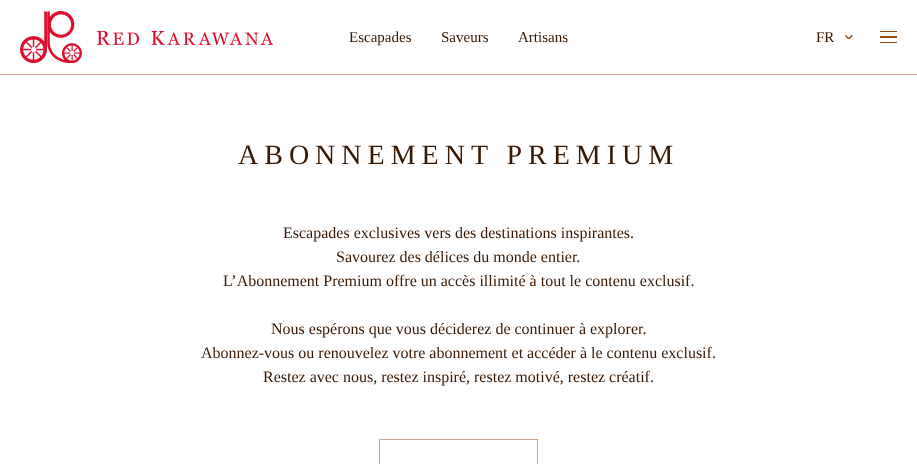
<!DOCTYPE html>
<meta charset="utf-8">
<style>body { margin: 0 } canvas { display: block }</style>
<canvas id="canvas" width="917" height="464"></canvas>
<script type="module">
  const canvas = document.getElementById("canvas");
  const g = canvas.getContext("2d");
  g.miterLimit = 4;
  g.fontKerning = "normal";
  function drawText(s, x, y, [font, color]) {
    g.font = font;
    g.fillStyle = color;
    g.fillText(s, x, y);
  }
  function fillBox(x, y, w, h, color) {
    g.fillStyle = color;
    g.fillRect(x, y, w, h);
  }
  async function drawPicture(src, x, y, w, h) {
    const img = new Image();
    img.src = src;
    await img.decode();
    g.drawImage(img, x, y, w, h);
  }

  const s1 = ["15px Liberation Serif", "#391802"];
  const s2 = ["28px Liberation Serif", "#391802"];
  const s3 = ["16px Liberation Serif", "#391802"];

  fillBox(0, 0, 917, 464, "#FFFFFF");
  fillBox(0, 74, 917, 1, "#CEA38B");
  await drawPicture("pic1.png", 20, 11, 253, 52);
  drawText("Escapades", 349, 42, s1);
  drawText("Saveurs", 441, 42, s1);
  drawText("Artisans", 518, 42, s1);
  drawText("FR", 816, 42, s1);
  await drawPicture("pic2.png", 845, 35, 8, 4);
  fillBox(880, 36, 17, 2, "#964B11");
  fillBox(880, 31, 17, 1, "#964B11");
  fillBox(880, 42, 17, 1, "#964B11");
  g.letterSpacing = "6px";
  drawText("ABONNEMENT PREMIUM", 238, 164, s2);
  g.letterSpacing = "0px";
  drawText("Escapades exclusives vers des destinations inspirantes.", 283, 238, s3);
  drawText("Savourez des délices du monde entier.", 336, 262, s3);
  drawText("L’Abonnement Premium offre un accès illimité à tout le contenu exclusif.", 223, 286, s3);
  drawText("Nous espérons que vous déciderez de continuer à explorer.", 271, 334, s3);
  drawText("Abonnez-vous ou renouvelez votre abonnement et accéder à le contenu exclusif.", 201, 358, s3);
  drawText("Restez avec nous, restez inspiré, restez motivé, restez créatif.", 263, 382, s3);
  g.strokeStyle = "#CEA38B";
  g.strokeRect(379.5, 439.5, 158, 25);
</script>
